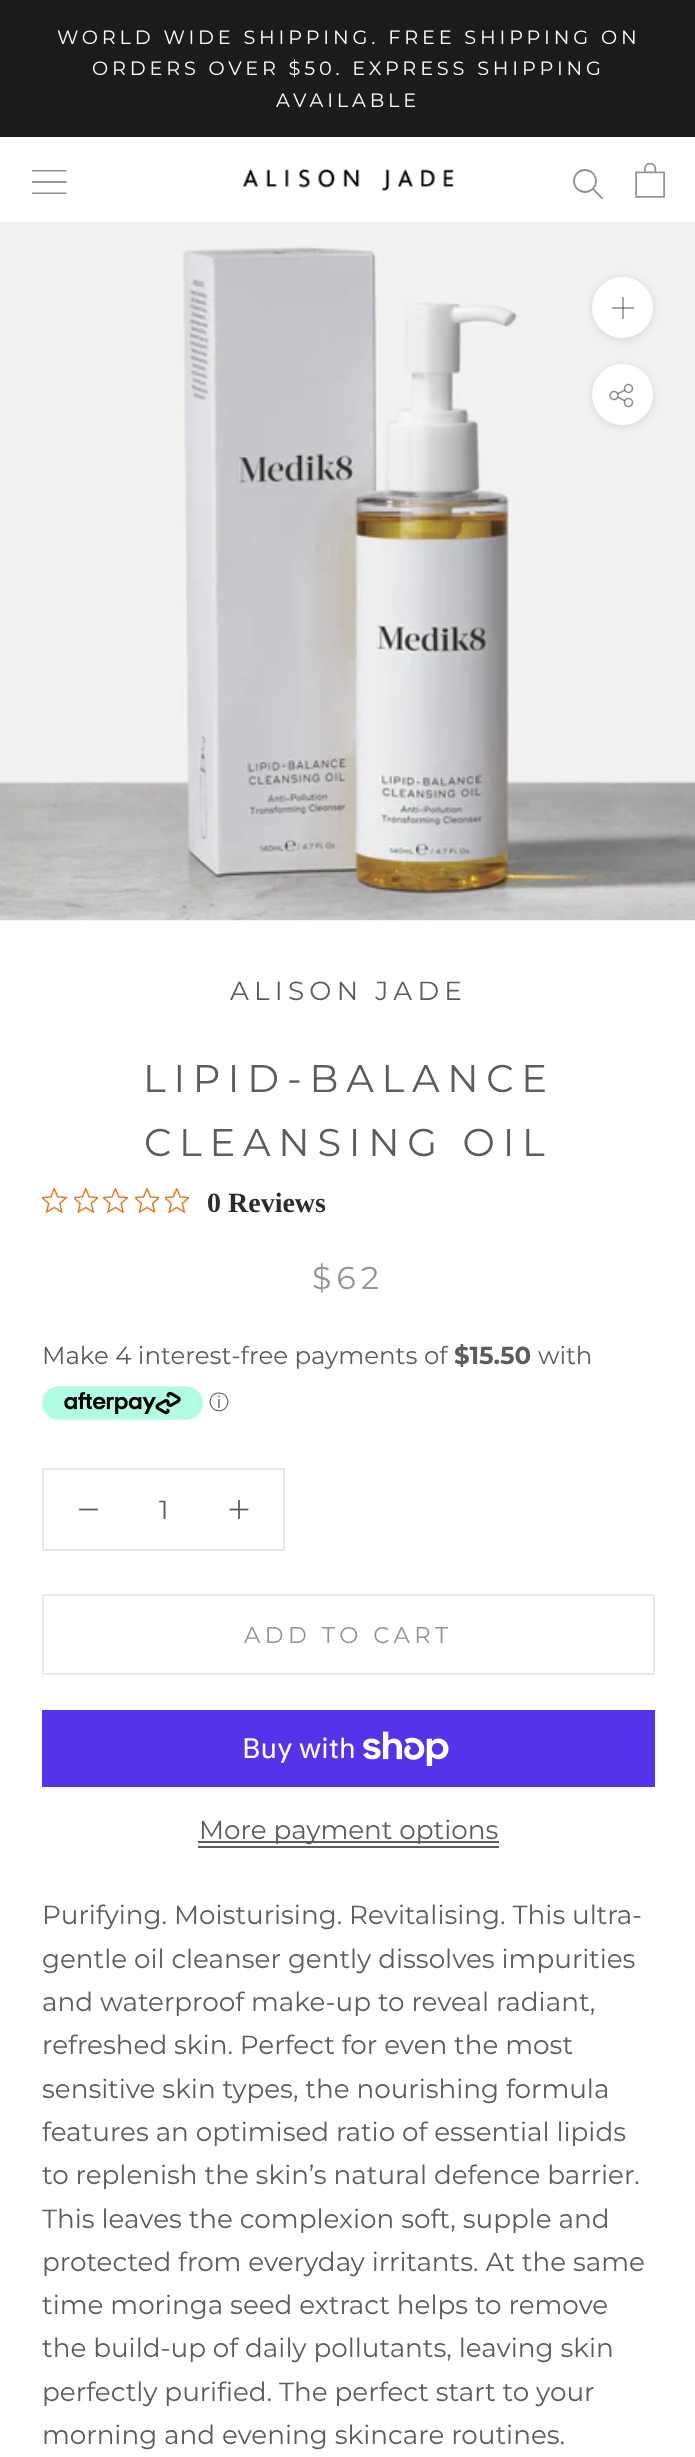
<!DOCTYPE html>
<meta charset="utf-8">
<style>body { margin: 0 } canvas { display: block }</style>
<canvas id="canvas" width="695" height="2457"></canvas>
<script type="module">
  const canvas = document.getElementById("canvas");
  const g = canvas.getContext("2d");
  g.miterLimit = 4;
  g.fontKerning = "normal";
  function drawText(s, x, y, [font, color]) {
    g.font = font;
    g.fillStyle = color;
    g.fillText(s, x, y);
  }
  function fillBox(x, y, w, h, color) {
    g.fillStyle = color;
    g.fillRect(x, y, w, h);
  }
  async function drawPicture(src, x, y, w, h) {
    const img = new Image();
    img.src = src;
    await img.decode();
    g.drawImage(img, x, y, w, h);
  }

  const s1 = ["19.25px Montserrat", "#FFFFFF"];
  const s2 = ["26.25px Montserrat", "#5C5C5C"];
  const s3 = ["38.5px Montserrat", "#5C5C5C"];
  const s4 = ["bold 28px Liberation Serif", "#2C2C2C"];
  const s5 = ["31.5px Montserrat", "#939393"];
  const s6 = ["24.5px Montserrat", "#5C5C5C"];
  const s7 = ["bold 24.5px Montserrat", "#5C5C5C"];
  const s8 = ["500 20px WenQuanYi Zen Hei", "#5C5C5C"];
  const s9 = ["22.75px Montserrat", "#939393"];
  const s10 = ["28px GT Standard", "#FFFFFF"];

  fillBox(0, 0, 695, 2457, "#FFFFFF");
  fillBox(0, 0, 695, 137, "#1C1B1B");
  g.letterSpacing = "3.85px";
  drawText("WORLD WIDE SHIPPING. FREE SHIPPING ON", 57, 44, s1);
  drawText("ORDERS OVER $50. EXPRESS SHIPPING", 92, 75, s1);
  drawText("AVAILABLE", 276, 107, s1);
  fillBox(0, 222, 695, 2, "#EFEFEF");
  g.save();
  g.beginPath();
  g.rect(32, 170, 35, 24);
  g.clip();
  g.fillStyle = "#939393";
  g.beginPath();
  g.moveTo(31.5, 194);
  g.lineTo(31.5, 192.5);
  g.lineTo(66.5, 192.5);
  g.lineTo(66.5, 194);
  g.closePath();
  g.moveTo(31.5, 181);
  g.lineTo(66.5, 181);
  g.lineTo(66.5, 183);
  g.lineTo(31.5, 183);
  g.closePath();
  g.moveTo(31.5, 170);
  g.lineTo(66.5, 170);
  g.lineTo(66.5, 171.5);
  g.lineTo(31.5, 171.5);
  g.closePath();
  g.fill();
  g.restore();
  await drawPicture("pic1.png", 243, 169, 211, 22);
  g.beginPath();
  g.moveTo(602, 198);
  g.lineTo(593, 189);
  g.strokeStyle = "#939393";
  g.lineWidth = 1.8;
  g.lineCap = "square";
  g.stroke();
  g.beginPath();
  g.arc(585, 181, 11, 0, Math.PI * 2);
  g.stroke();
  await drawPicture("pic2.png", 635, 163, 30, 35);
  await drawPicture("pic3.png", 0, 224, 695, 697);
  g.fillStyle = "rgba(54, 54, 54, 0.15)";
  g.filter = "blur(4.5px)";
  g.beginPath();
  g.roundRect(592, 278, 61, 62, 30.5);
  g.fill();
  g.filter = "none";
  g.fillStyle = "#FFFFFF";
  g.beginPath();
  g.arc(622.5, 307.5, 30.5, 0, Math.PI * 2);
  g.fill();
  fillBox(622, 297, 2, 22, "#AAAAAA");
  fillBox(612, 307, 22, 2, "rgba(28, 27, 27, 0.38)");
  g.fillStyle = "rgba(54, 54, 54, 0.15)";
  g.filter = "blur(4.5px)";
  g.beginPath();
  g.roundRect(592, 366, 61, 61, 30.5);
  g.fill();
  g.filter = "none";
  g.fillStyle = "#FFFFFF";
  g.beginPath();
  g.arc(622.5, 394.5, 30.5, 0, Math.PI * 2);
  g.fill();
  await drawPicture("pic4.png", 609, 383, 25, 25);
  g.letterSpacing = "5.25px";
  drawText("ALISON JADE", 230, 1000, s2);
  g.letterSpacing = "7.75px";
  drawText("LIPID-BALANCE", 143, 1092, s3);
  drawText("CLEANSING OIL", 144, 1156, s3);
  await drawPicture("pic5.png", 42, 1188, 25, 25);
  await drawPicture("pic6.png", 74, 1188, 24, 25);
  await drawPicture("pic7.png", 103, 1188, 25, 25);
  await drawPicture("pic8.png", 135, 1188, 24, 25);
  await drawPicture("pic6.png", 165, 1188, 24, 25);
  g.letterSpacing = "0px";
  drawText("0 Reviews", 207, 1212, s4);
  g.letterSpacing = "5.25px";
  drawText("$62", 312, 1289, s5);
  g.letterSpacing = "0px";
  drawText("Make 4 interest-free payments of", 42, 1364, s6);
  drawText("$15.50", 454, 1364, s7);
  drawText("with", 538, 1364, s6);
  await drawPicture("pic9.png", 42, 1386, 161, 34);
  drawText("ⓘ", 209, 1409, s8);
  g.strokeStyle = "#E7E7E7";
  g.lineWidth = 2;
  g.strokeRect(43, 1469, 241, 81);
  g.beginPath();
  g.moveTo(80, 1509.5);
  g.lineTo(97, 1509.5);
  g.strokeStyle = "#5C5C5C";
  g.lineWidth = 1.8;
  g.stroke();
  drawText("1", 159, 1519, s2);
  fillBox(238, 1500, 2, 19, "#6C6C6C");
  g.beginPath();
  g.moveTo(230.5, 1509.5);
  g.lineTo(247.5, 1509.5);
  g.stroke();
  g.strokeStyle = "#E9E9E9";
  g.lineWidth = 2;
  g.strokeRect(43, 1595, 611, 79);
  g.letterSpacing = "4.5px";
  drawText("ADD TO CART", 244, 1643, s9);
  fillBox(42, 1710, 613, 77, "#5433EB");
  g.letterSpacing = "0px";
  drawText("Buy with", 242, 1758, s10);
  await drawPicture("pic10.png", 363, 1731, 86, 35);
  fillBox(198, 1841, 301, 2, "#5C5C5C");
  drawText("More payment options", 199, 1839, s2);
  fillBox(198, 1846, 301, 2, "#5C5C5C");
  drawText("Purifying. Moisturising. Revitalising. This ultra-", 42, 1924, s2);
  drawText("gentle oil cleanser gently dissolves impurities", 42, 1968, s2);
  drawText("and waterproof make-up to reveal radiant,", 42, 2011, s2);
  drawText("refreshed skin. Perfect for even the most", 42, 2054, s2);
  drawText("sensitive skin types, the nourishing formula", 42, 2098, s2);
  drawText("features an optimised ratio of essential lipids", 42, 2141, s2);
  drawText("to replenish the skin’s natural defence barrier.", 42, 2184, s2);
  drawText("This leaves the complexion soft, supple and", 42, 2228, s2);
  drawText("protected from everyday irritants. At the same", 42, 2271, s2);
  drawText("time moringa seed extract helps to remove", 42, 2314, s2);
  drawText("the build-up of daily pollutants, leaving skin", 42, 2357, s2);
  drawText("perfectly purified. The perfect start to your", 42, 2401, s2);
  drawText("morning and evening skincare routines.", 42, 2444, s2);
</script>
